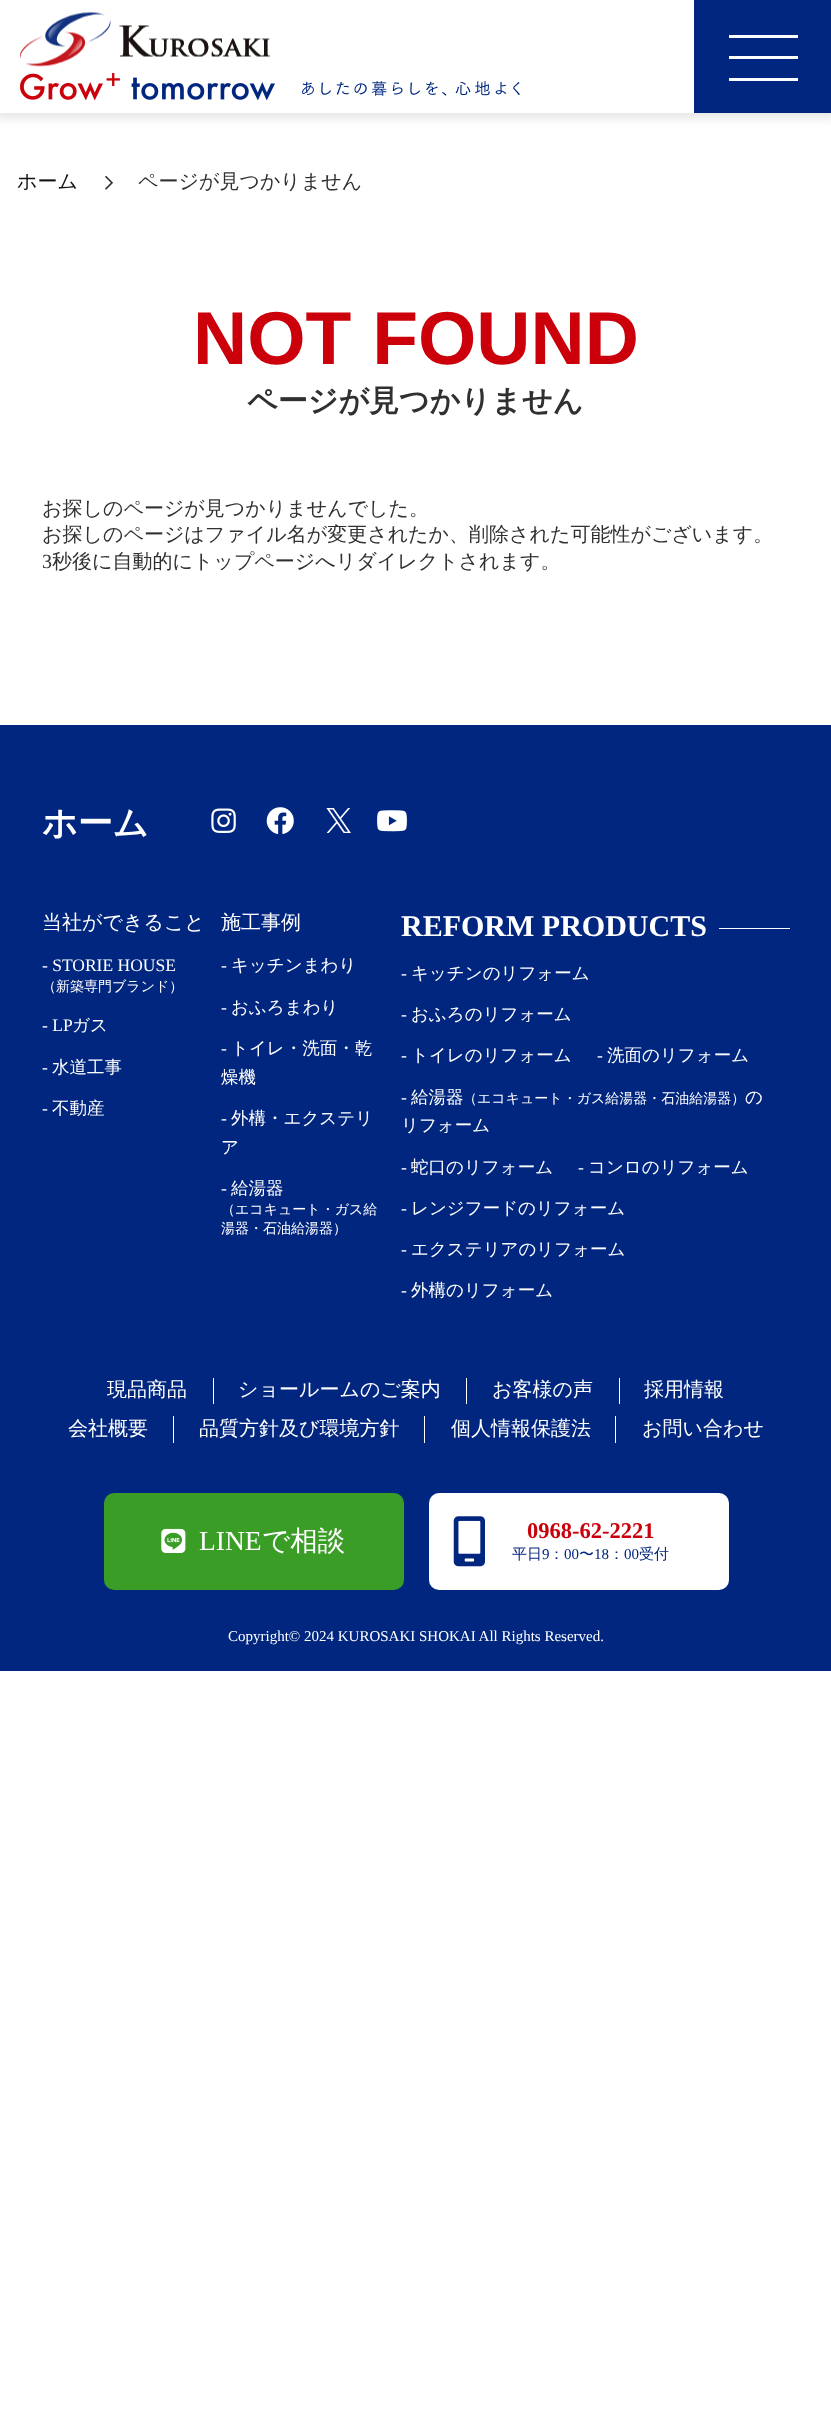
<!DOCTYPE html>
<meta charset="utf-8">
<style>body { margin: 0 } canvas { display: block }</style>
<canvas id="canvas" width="831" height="2430"></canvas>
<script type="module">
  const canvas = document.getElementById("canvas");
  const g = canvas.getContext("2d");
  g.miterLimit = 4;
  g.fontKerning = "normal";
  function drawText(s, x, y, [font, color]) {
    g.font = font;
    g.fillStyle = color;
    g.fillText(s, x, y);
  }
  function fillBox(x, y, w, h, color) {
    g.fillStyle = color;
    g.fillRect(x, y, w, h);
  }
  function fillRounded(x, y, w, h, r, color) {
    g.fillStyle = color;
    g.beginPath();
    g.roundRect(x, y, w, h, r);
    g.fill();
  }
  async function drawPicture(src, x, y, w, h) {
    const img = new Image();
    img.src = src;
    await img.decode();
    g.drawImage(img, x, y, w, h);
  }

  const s1 = ["500 20px WenQuanYi Zen Hei", "#111111"];
  const s2 = ["500 20px WenQuanYi Zen Hei", "#303030"];
  const s3 = ["bold 75px Liberation Sans", "#CB000B"];
  const s4 = ["bold 30px WenQuanYi Zen Hei", "#303030"];
  const s5 = ["20px Liberation Serif", "#303030"];
  const s6 = ["bold 35px WenQuanYi Zen Hei", "#FFFFFF"];
  const s7 = ["500 20px WenQuanYi Zen Hei", "#FFFFFF"];
  const s8 = ["17.5px Liberation Serif", "#FFFFFF"];
  const s9 = ["500 14px WenQuanYi Zen Hei", "#FFFFFF"];
  const s10 = ["500 17.5px WenQuanYi Zen Hei", "#FFFFFF"];
  const s11 = ["bold 30px Liberation Serif", "#FFFFFF"];
  const s12 = ["27.5px Liberation Serif", "#FFFFFF"];
  const s13 = ["500 27.5px WenQuanYi Zen Hei", "#FFFFFF"];
  const s14 = ["bold 22.5px Liberation Serif", "#CB000B"];
  const s15 = ["500 15px WenQuanYi Zen Hei", "#00267F"];
  const s16 = ["15px Liberation Serif", "#00267F"];
  const s17 = ["15px Liberation Serif", "#FFFFFF"];

  fillBox(0, 0, 831, 2430, "#FFFFFF");
  g.fillStyle = "rgba(0, 0, 0, 0.1)";
  g.filter = "blur(5px)";
  g.beginPath();
  g.rect(-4, -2, 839, 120);
  g.fill();
  g.filter = "none";
  fillBox(0, 0, 694, 113, "#FFFFFF");
  await drawPicture("pic1.png", 20, 12, 250, 55);
  await drawPicture("pic2.png", 20, 73, 500, 27);
  fillBox(694, 0, 137, 113, "#00267F");
  fillBox(729, 35, 69, 3, "#FFFFFF");
  fillBox(729, 56, 69, 3, "#FFFFFF");
  fillBox(729, 78, 69, 3, "#FFFFFF");
  drawText("ホーム", 17, 188, s1);
  await drawPicture("pic3.png", 105, 175, 8, 15);
  drawText("ページが見つかりません", 138, 188, s2);
  drawText("NOT FOUND", 193, 364, s3);
  drawText("ページが見つかりません", 247, 411, s4);
  drawText("お探しのページが見つかりませんでした。", 42, 515, s2);
  drawText("お探しのページはファイル名が変更されたか、削除された可能性がございます。", 42, 541, s2);
  drawText("3", 42, 568, s5);
  drawText("秒後に自動的にトップページへリダイレクトされます。", 52, 568, s2);
  fillBox(0, 725, 831, 946, "#00267F");
  drawText("ホーム", 42, 835, s6);
  await drawPicture("pic4.png", 211, 808, 25, 25);
  await drawPicture("pic5.png", 266, 807, 28, 28);
  await drawPicture("pic6.png", 326, 808, 25, 25);
  await drawPicture("pic7.png", 377, 810, 30, 22);
  drawText("当社ができること", 42, 929, s7);
  drawText("- STORIE HOUSE", 42, 971, s8);
  drawText("（新築専門ブランド）", 42, 991, s9);
  drawText("- LP", 42, 1031, s8);
  drawText("ガス", 72, 1031, s10);
  drawText("-", 42, 1073, s8);
  drawText("水道工事", 52, 1073, s10);
  drawText("-", 42, 1114, s8);
  drawText("不動産", 52, 1114, s10);
  drawText("施工事例", 221, 929, s7);
  drawText("-", 221, 971, s8);
  drawText("キッチンまわり", 231, 971, s10);
  drawText("-", 221, 1013, s8);
  drawText("おふろまわり", 231, 1013, s10);
  drawText("-", 221, 1054, s8);
  drawText("トイレ・洗面・乾", 231, 1054, s10);
  drawText("燥機", 221, 1083, s10);
  drawText("-", 221, 1124, s8);
  drawText("外構・エクステリ", 231, 1124, s10);
  drawText("ア", 221, 1153, s10);
  drawText("-", 221, 1194, s8);
  drawText("給湯器", 231, 1194, s10);
  drawText("（エコキュート・ガス給", 221, 1214, s9);
  drawText("湯器・石油給湯器）", 221, 1233, s9);
  drawText("REFORM PRODUCTS", 401, 936, s11);
  fillBox(719, 928, 71, 1, "#FFFFFF");
  drawText("-", 401, 979, s8);
  drawText("キッチンのリフォーム", 411, 979, s10);
  drawText("-", 401, 1020, s8);
  drawText("おふろのリフォーム", 411, 1020, s10);
  drawText("-", 401, 1061, s8);
  drawText("トイレのリフォーム", 411, 1061, s10);
  drawText("-", 597, 1061, s8);
  drawText("洗面のリフォーム", 607, 1061, s10);
  drawText("-", 401, 1103, s8);
  drawText("給湯器", 411, 1103, s10);
  drawText("（エコキュート・ガス給湯器・石油給湯器）", 463, 1103, s9);
  drawText("の", 745, 1103, s10);
  drawText("リフォーム", 401, 1131, s10);
  drawText("-", 401, 1173, s8);
  drawText("蛇口のリフォーム", 411, 1173, s10);
  drawText("-", 578, 1173, s8);
  drawText("コンロのリフォーム", 588, 1173, s10);
  drawText("-", 401, 1214, s8);
  drawText("レンジフードのリフォーム", 411, 1214, s10);
  drawText("-", 401, 1255, s8);
  drawText("エクステリアのリフォーム", 411, 1255, s10);
  drawText("-", 401, 1296, s8);
  drawText("外構のリフォーム", 411, 1296, s10);
  fillBox(213, 1378, 1, 26, "#FFFFFF");
  drawText("現品商品", 107, 1396, s7);
  fillBox(466, 1378, 1, 26, "#FFFFFF");
  drawText("ショールームのご案内", 238, 1396, s7);
  fillBox(619, 1378, 1, 26, "#FFFFFF");
  drawText("お客様の声", 492, 1396, s7);
  drawText("採用情報", 644, 1396, s7);
  fillBox(173, 1416, 1, 27, "#FFFFFF");
  drawText("会社概要", 68, 1435, s7);
  fillBox(424, 1416, 1, 27, "#FFFFFF");
  drawText("品質方針及び環境方針", 199, 1435, s7);
  fillBox(615, 1416, 1, 27, "#FFFFFF");
  drawText("個人情報保護法", 451, 1435, s7);
  drawText("お問い合わせ", 642, 1435, s7);
  fillRounded(104, 1493, 300, 97, 10, "#3A9D25");
  await drawPicture("pic8.png", 161, 1528, 25, 25);
  drawText("LINE", 199, 1550, s12);
  drawText("で相談", 262, 1550, s13);
  fillRounded(429, 1493, 300, 97, 10, "#FFFFFF");
  await drawPicture("pic9.png", 453, 1516, 32, 51);
  drawText("0968-62-2221", 527, 1538, s14);
  drawText("平日", 512, 1559, s15);
  drawText("9", 542, 1559, s16);
  drawText("：", 549, 1559, s15);
  drawText("00", 564, 1559, s16);
  drawText("〜", 579, 1559, s15);
  drawText("18", 594, 1559, s16);
  drawText("：", 609, 1559, s15);
  drawText("00", 624, 1559, s16);
  drawText("受付", 639, 1559, s15);
  drawText("Copyright© 2024 KUROSAKI SHOKAI All Rights Reserved.", 228, 1641, s17);
</script>
